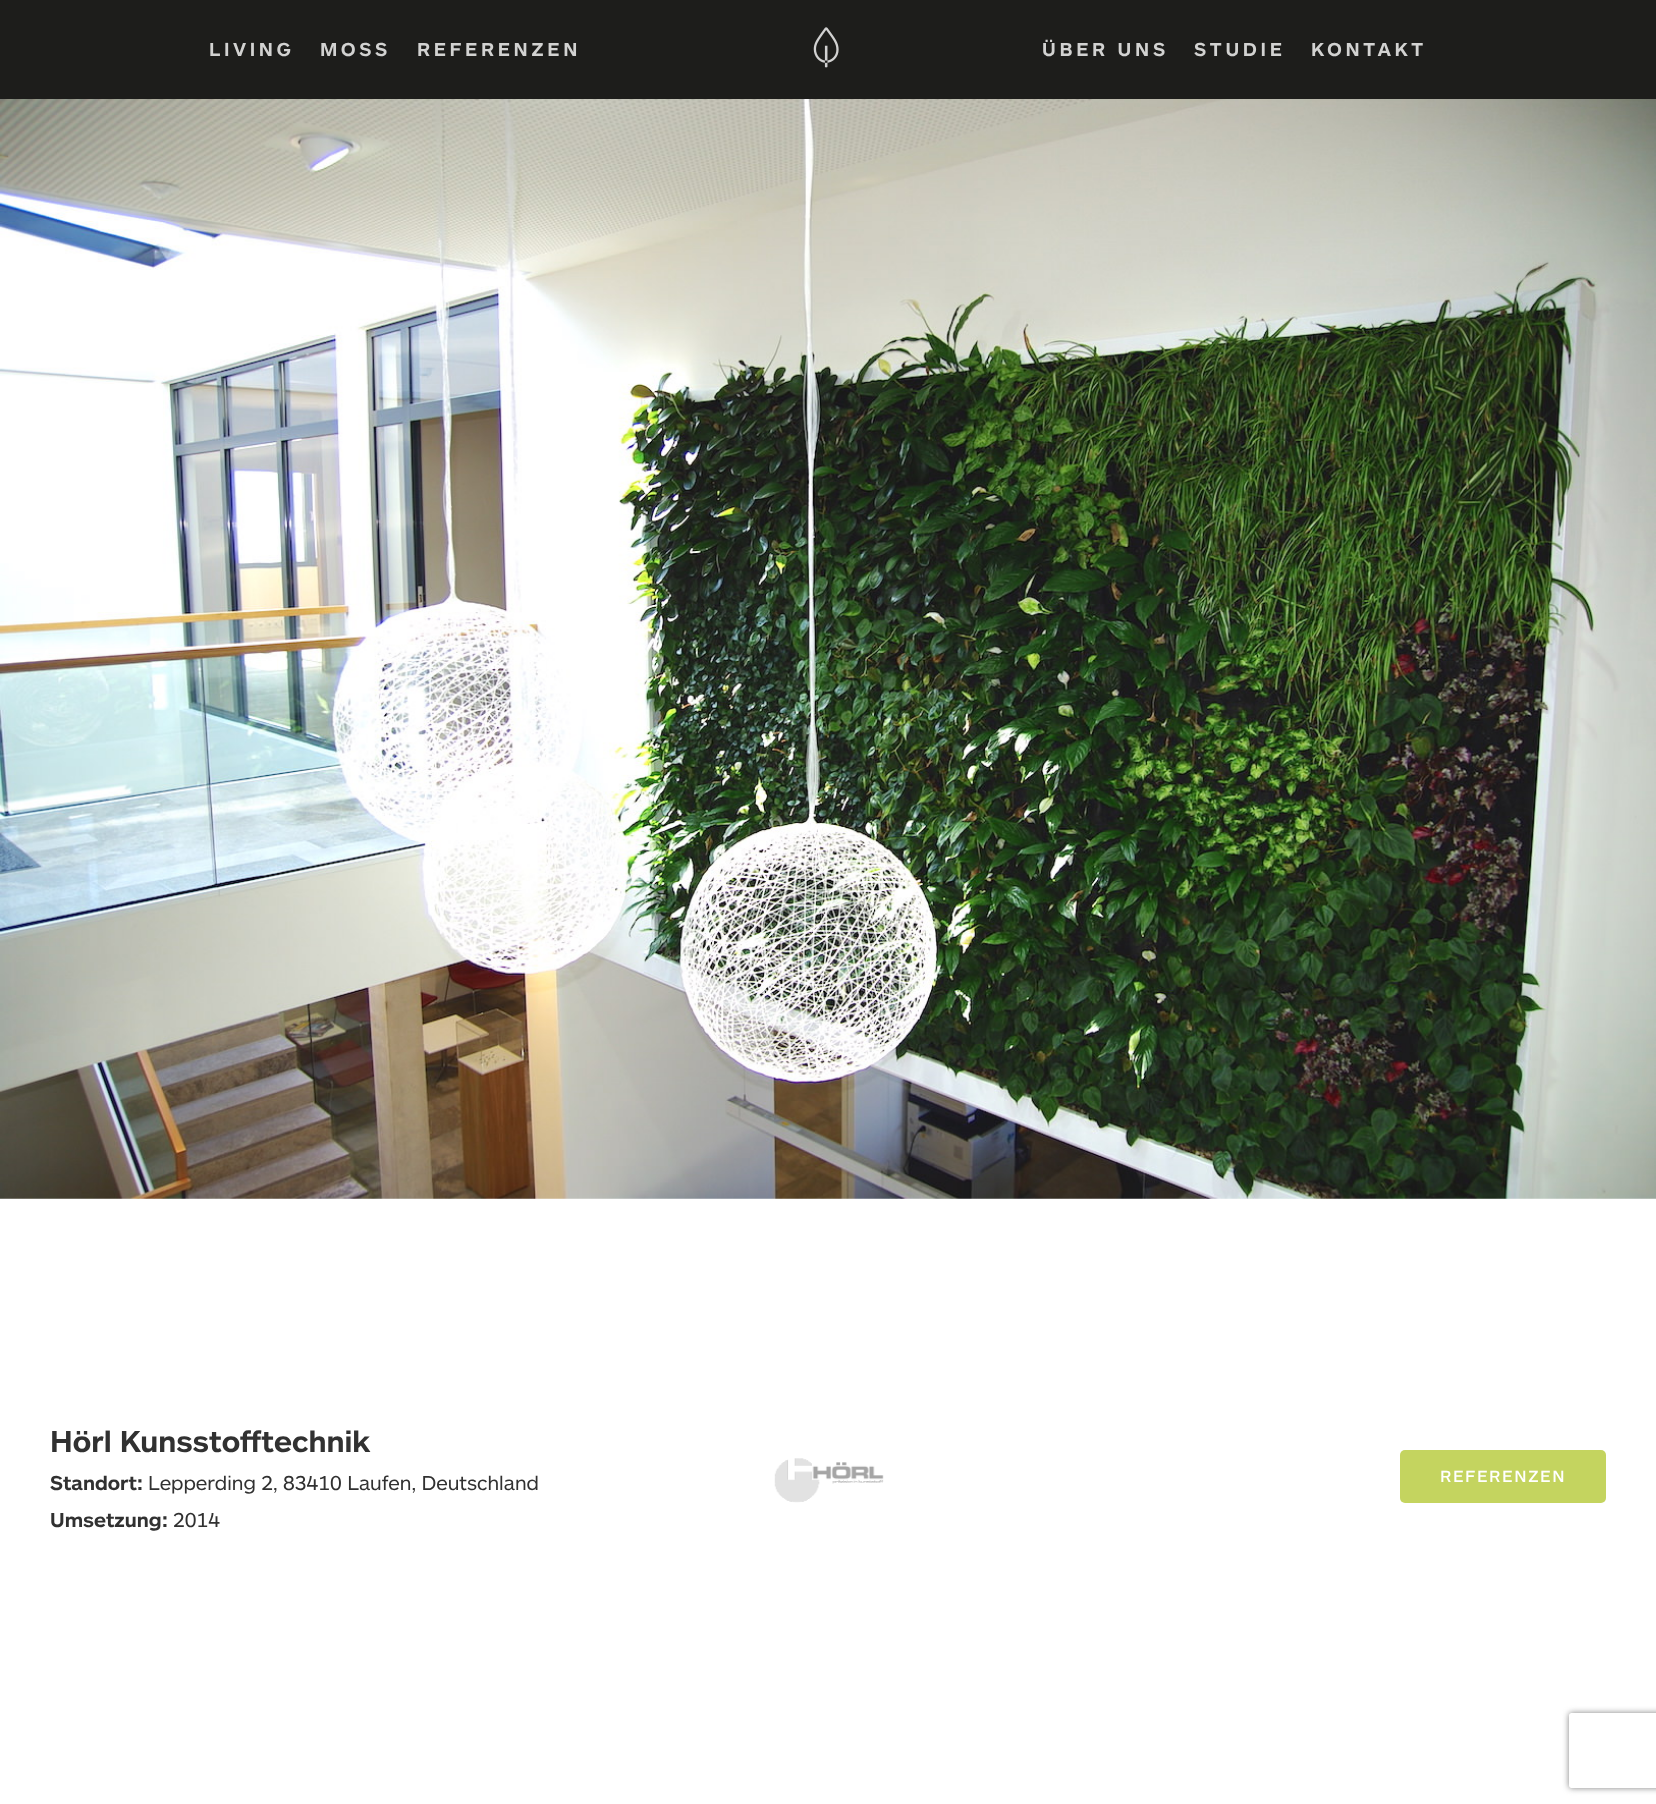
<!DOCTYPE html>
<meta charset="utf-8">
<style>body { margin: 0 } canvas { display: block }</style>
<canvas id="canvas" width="1656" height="1804"></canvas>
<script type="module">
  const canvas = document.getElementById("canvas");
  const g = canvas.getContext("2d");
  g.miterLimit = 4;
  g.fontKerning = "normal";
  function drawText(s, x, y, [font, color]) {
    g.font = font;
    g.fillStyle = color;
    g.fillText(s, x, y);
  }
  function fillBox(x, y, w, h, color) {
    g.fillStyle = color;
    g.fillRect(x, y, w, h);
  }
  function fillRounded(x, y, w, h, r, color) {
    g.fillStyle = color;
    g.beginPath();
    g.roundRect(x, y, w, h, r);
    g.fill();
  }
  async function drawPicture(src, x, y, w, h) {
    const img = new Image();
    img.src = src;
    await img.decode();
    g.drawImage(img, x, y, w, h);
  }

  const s1 = ["bold 18.75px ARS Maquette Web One", "#D2D2D1"];
  const s2 = ["bold 30px ARS Maquette Web One", "#313131"];
  const s3 = ["bold 20px ARS Maquette Web One", "#313131"];
  const s4 = ["20px ARS Maquette Web One", "#313131"];
  const s5 = ["bold 16.25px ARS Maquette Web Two", "#FFFFFF"];

  fillBox(0, 0, 1656, 1804, "#FFFFFF");
  fillBox(0, 0, 1656, 99, "#1D1D1B");
  g.letterSpacing = "3.75px";
  drawText("LIVING", 209, 56, s1);
  drawText("MOSS", 320, 56, s1);
  drawText("REFERENZEN", 417, 56, s1);
  await drawPicture("pic1.png", 813, 27, 26, 41);
  drawText("ÜBER UNS", 1042, 56, s1);
  drawText("STUDIE", 1194, 56, s1);
  drawText("KONTAKT", 1311, 56, s1);
  await drawPicture("pic2.png", 0, 99, 1656, 1100);
  g.letterSpacing = "0px";
  drawText("Hörl Kunsstofftechnik", 50, 1452, s2);
  drawText("Standort:", 50, 1490, s3);
  drawText("Lepperding 2, 83410 Laufen, Deutschland", 148, 1490, s4);
  drawText("Umsetzung:", 50, 1527, s3);
  drawText("2014", 173, 1527, s4);
  await drawPicture("pic3.png", 774, 1458, 110, 45);
  fillRounded(1400, 1450, 206, 53, 5, "#C4D45F");
  g.letterSpacing = "1.6px";
  drawText("REFERENZEN", 1440, 1482, s5);
  g.save();
  g.beginPath();
  g.moveTo(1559, 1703);
  g.lineTo(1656, 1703);
  g.lineTo(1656, 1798);
  g.lineTo(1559, 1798);
  g.closePath();
  g.moveTo(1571.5, 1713);
  g.lineTo(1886.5, 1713);
  g.bezierCurveTo(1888, 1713, 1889, 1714, 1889, 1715.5);
  g.lineTo(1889, 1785.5);
  g.bezierCurveTo(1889, 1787, 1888, 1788, 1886.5, 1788);
  g.lineTo(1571.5, 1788);
  g.bezierCurveTo(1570, 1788, 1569, 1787, 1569, 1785.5);
  g.lineTo(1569, 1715.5);
  g.bezierCurveTo(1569, 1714, 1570, 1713, 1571.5, 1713);
  g.closePath();
  g.clip("evenodd");
  g.fillStyle = "#808080";
  g.filter = "blur(3px)";
  g.beginPath();
  g.roundRect(1569, 1713, 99, 75, 2.5);
  g.fill();
  g.filter = "none";
  g.restore();
</script>
